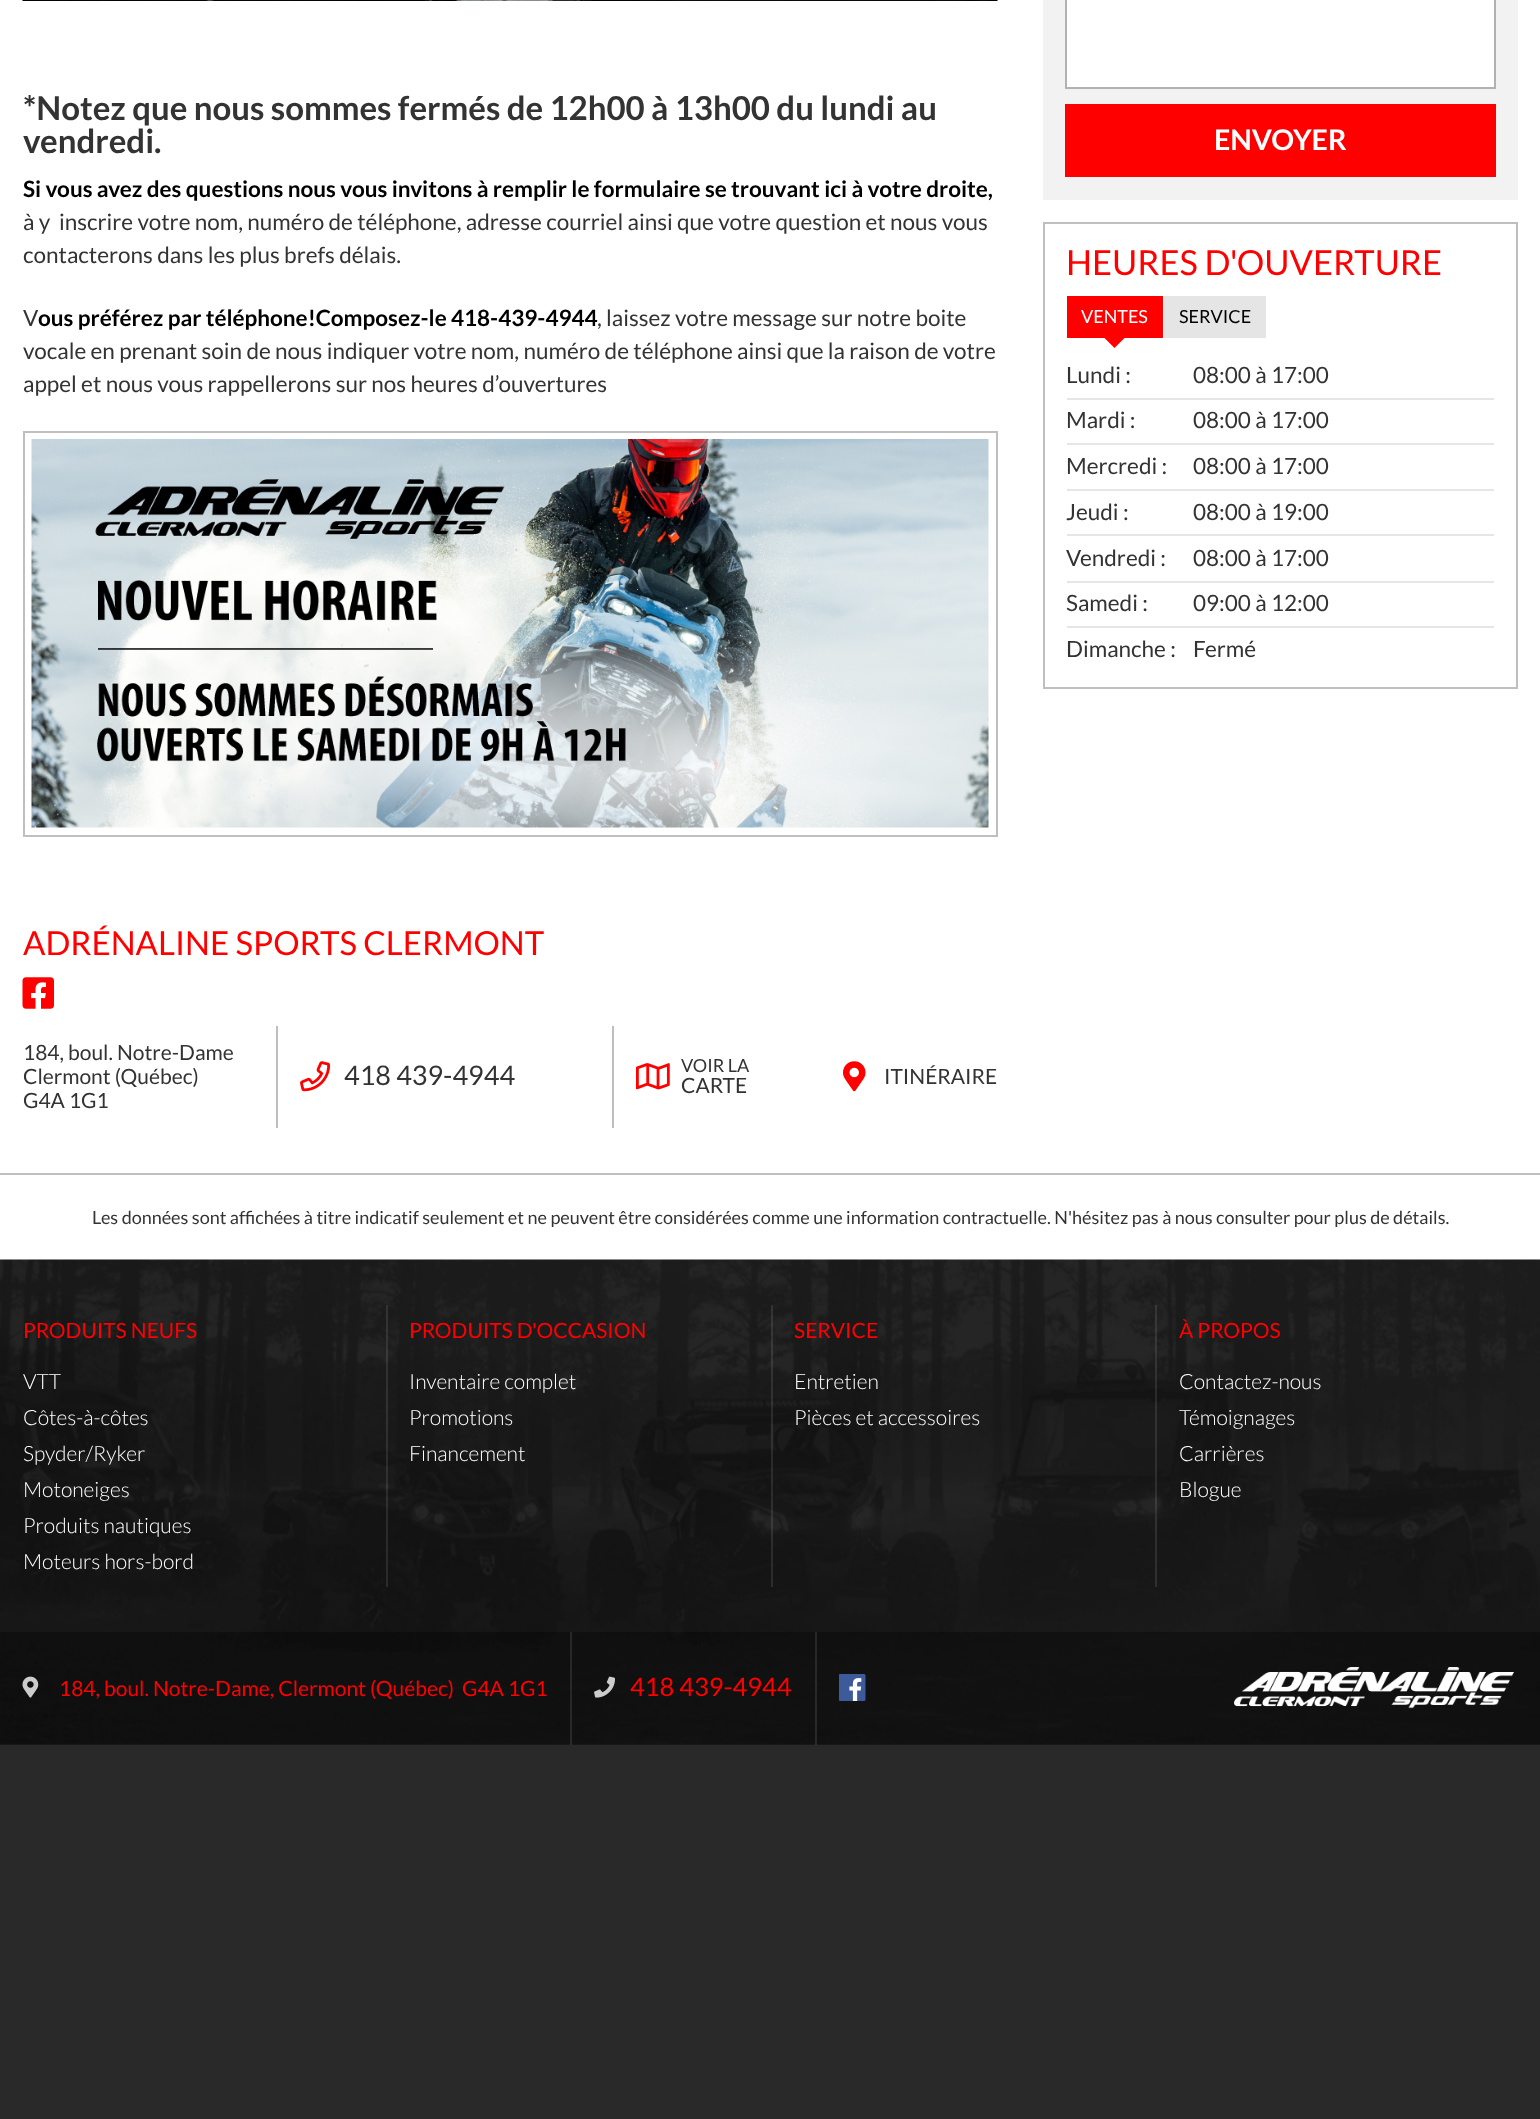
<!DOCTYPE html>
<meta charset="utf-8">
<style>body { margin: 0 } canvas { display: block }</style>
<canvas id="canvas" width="1540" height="2119"></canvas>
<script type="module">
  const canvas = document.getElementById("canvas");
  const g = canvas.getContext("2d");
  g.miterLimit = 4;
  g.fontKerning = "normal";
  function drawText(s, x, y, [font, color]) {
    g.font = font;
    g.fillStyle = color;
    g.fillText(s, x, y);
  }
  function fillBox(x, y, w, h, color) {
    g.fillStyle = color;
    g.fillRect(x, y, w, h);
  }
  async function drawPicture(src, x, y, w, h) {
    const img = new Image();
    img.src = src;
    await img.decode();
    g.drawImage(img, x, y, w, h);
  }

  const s1 = ["bold 33px Lato", "#333333"];
  const s2 = ["bold 22.5px Lato", "#000000"];
  const s3 = ["22.5px Lato", "#333333"];
  const s4 = ["33px Lato", "#FF0000"];
  const s5 = ["21px Lato", "#333333"];
  const s6 = ["27px Lato", "#333333"];
  const s7 = ["18px Lato", "#333333"];
  const s8 = ["bold 28.5px Lato", "#FFFFFF"];
  const s9 = ["34.5px Lato", "#FF0000"];
  const s10 = ["18px Lato", "#FFFFFF"];
  const s11 = ["18px Lato", "#000000"];
  const s12 = ["21px Lato", "#FF0000"];
  const s13 = ["300 21px Lato", "#FFFFFF"];
  const s14 = ["25.5px Lato", "#FF0000"];

  fillBox(0, 0, 1540, 2119, "#292929");
  fillBox(0, 0, 1540, 1173, "#FFFFFF");
  await drawPicture("pic1.png", 22, 0, 976, 1);
  drawText("*Notez que nous sommes fermés de 12h00 à 13h00 du lundi au", 23, 120, s1);
  drawText("vendredi.", 23, 153, s1);
  drawText("Si vous avez des questions nous vous invitons à remplir le formulaire se trouvant ici à votre droite,", 23, 197, s2);
  drawText("à y  inscrire votre nom, numéro de téléphone, adresse courriel ainsi que votre question et nous vous", 23, 230, s3);
  drawText("contacterons dans les plus brefs délais.", 23, 263, s3);
  drawText("V", 23, 326, s3);
  drawText("ous préférez par téléphone!Composez-le 418-439-4944", 38, 326, s2);
  drawText(", laissez votre message sur notre boite", 597, 326, s3);
  drawText("vocale en prenant soin de nous indiquer votre nom, numéro de téléphone ainsi que la raison de votre", 23, 359, s3);
  drawText("appel et nous vous rappellerons sur nos heures d’ouvertures", 23, 392, s3);
  g.strokeStyle = "#BFBFBF";
  g.lineWidth = 2;
  g.strokeRect(24, 432, 973, 404);
  await drawPicture("pic2.png", 31, 439, 958, 389);
  drawText("ADRÉNALINE SPORTS CLERMONT", 23, 955, s4);
  await drawPicture("pic3.png", 22, 977, 32, 32);
  drawText("184, boul. Notre-Dame", 23, 1060, s5);
  drawText("Clermont (Québec)", 23, 1084, s5);
  drawText("G4A 1G1", 23, 1108, s5);
  fillBox(276, 1026, 2, 102, "#BFBFBF");
  await drawPicture("pic4.png", 300, 1061, 31, 31);
  drawText("418 439-4944", 344, 1085, s6);
  fillBox(612, 1026, 2, 102, "#BFBFBF");
  await drawPicture("pic5.png", 636, 1063, 34, 27);
  drawText("VOIR LA", 681, 1072, s7);
  drawText("CARTE", 681, 1093, s5);
  await drawPicture("pic6.png", 843, 1061, 23, 31);
  drawText("ITINÉRAIRE", 884, 1084, s5);
  fillBox(1043, 0, 475, 200, "#F2F2F2");
  g.fillStyle = "#FFFFFF";
  g.beginPath();
  g.rect(1066, -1, 429, 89);
  g.fill();
  g.strokeStyle = "#B3B2B2";
  g.stroke();
  fillBox(1065, 104, 431, 73, "#FF0000");
  drawText("ENVOYER", 1214, 150, s8);
  g.strokeStyle = "#BFBFBF";
  g.strokeRect(1044, 223, 473, 465);
  drawText("HEURES D'OUVERTURE", 1066, 275, s9);
  fillBox(1067, 296, 96, 42, "#FF0000");
  drawText("VENTES", 1081, 323, s10);
  g.fillStyle = "#FF0000";
  g.beginPath();
  g.moveTo(1104, 337.5);
  g.lineTo(1125, 337.5);
  g.lineTo(1114.5, 348);
  g.closePath();
  g.fill();
  fillBox(1164, 296, 102, 42, "#E6E5E5");
  drawText("SERVICE", 1179, 323, s11);
  drawText("Lundi :", 1066, 383, s3);
  drawText("08:00 à 17:00", 1193, 383, s3);
  fillBox(1067, 398, 427, 2, "#E6E6E6");
  drawText("Mardi :", 1066, 428, s3);
  drawText("08:00 à 17:00", 1193, 428, s3);
  fillBox(1067, 443, 427, 2, "#E6E6E6");
  drawText("Mercredi :", 1066, 474, s3);
  drawText("08:00 à 17:00", 1193, 474, s3);
  fillBox(1067, 489, 427, 2, "#E6E6E6");
  drawText("Jeudi :", 1066, 520, s3);
  drawText("08:00 à 19:00", 1193, 520, s3);
  fillBox(1067, 534, 427, 2, "#E6E6E6");
  drawText("Vendredi :", 1066, 566, s3);
  drawText("08:00 à 17:00", 1193, 566, s3);
  fillBox(1067, 581, 427, 2, "#E6E6E6");
  drawText("Samedi :", 1066, 611, s3);
  drawText("09:00 à 12:00", 1193, 611, s3);
  fillBox(1067, 626, 427, 2, "#E6E6E6");
  drawText("Dimanche :", 1066, 657, s3);
  drawText("Fermé", 1193, 657, s3);
  fillBox(0, 1175, 1540, 85, "#FFFFFF");
  fillBox(0, 1173, 1540, 2, "#BFBFBF");
  drawText("Les données sont affichées à titre indicatif seulement et ne peuvent être considérées comme une information contractuelle. N'hésitez pas à nous consulter pour plus de détails.", 92, 1224, s7);
  fillBox(0, 1260, 1540, 485, "#333333");
  await drawPicture("pic7.png", 0, 1259, 1540, 485);
  fillBox(0, 1632, 1540, 113, "rgba(0, 0, 0, 0.3)");
  fillBox(0, 1260, 1540, 485, "rgba(0, 0, 0, 0.3)");
  drawText("PRODUITS NEUFS", 23, 1338, s12);
  drawText("VTT", 23, 1389, s13);
  drawText("Côtes-à-côtes", 23, 1425, s13);
  drawText("Spyder/Ryker", 23, 1461, s13);
  drawText("Motoneiges", 23, 1497, s13);
  drawText("Produits nautiques", 23, 1533, s13);
  drawText("Moteurs hors-bord", 23, 1569, s13);
  fillBox(386, 1305, 2, 282, "rgba(255, 255, 255, 0.1)");
  drawText("PRODUITS D'OCCASION", 409, 1338, s12);
  drawText("Inventaire complet", 409, 1389, s13);
  drawText("Promotions", 409, 1425, s13);
  drawText("Financement", 409, 1461, s13);
  fillBox(771, 1305, 2, 282, "rgba(255, 255, 255, 0.1)");
  drawText("SERVICE", 794, 1338, s12);
  drawText("Entretien", 794, 1389, s13);
  drawText("Pièces et accessoires", 794, 1425, s13);
  fillBox(1155, 1305, 2, 282, "rgba(255, 255, 255, 0.1)");
  drawText("À PROPOS", 1179, 1338, s12);
  drawText("Contactez-nous", 1179, 1389, s13);
  drawText("Témoignages", 1179, 1425, s13);
  drawText("Carrières", 1179, 1461, s13);
  drawText("Blogue", 1179, 1497, s13);
  await drawPicture("pic8.png", 22, 1676, 17, 22);
  drawText("184, boul. Notre-Dame, Clermont (Québec)", 59, 1696, s12);
  drawText("G4A 1G1", 462, 1696, s12);
  fillBox(570, 1632, 2, 113, "rgba(255, 255, 255, 0.1)");
  await drawPicture("pic9.png", 594, 1676, 21, 22);
  drawText("418 439-4944", 630, 1696, s14);
  fillBox(815, 1632, 2, 113, "rgba(255, 255, 255, 0.1)");
  await drawPicture("pic10.png", 839, 1674, 27, 27);
  await drawPicture("pic11.png", 1234, 1667, 280, 42);
</script>
